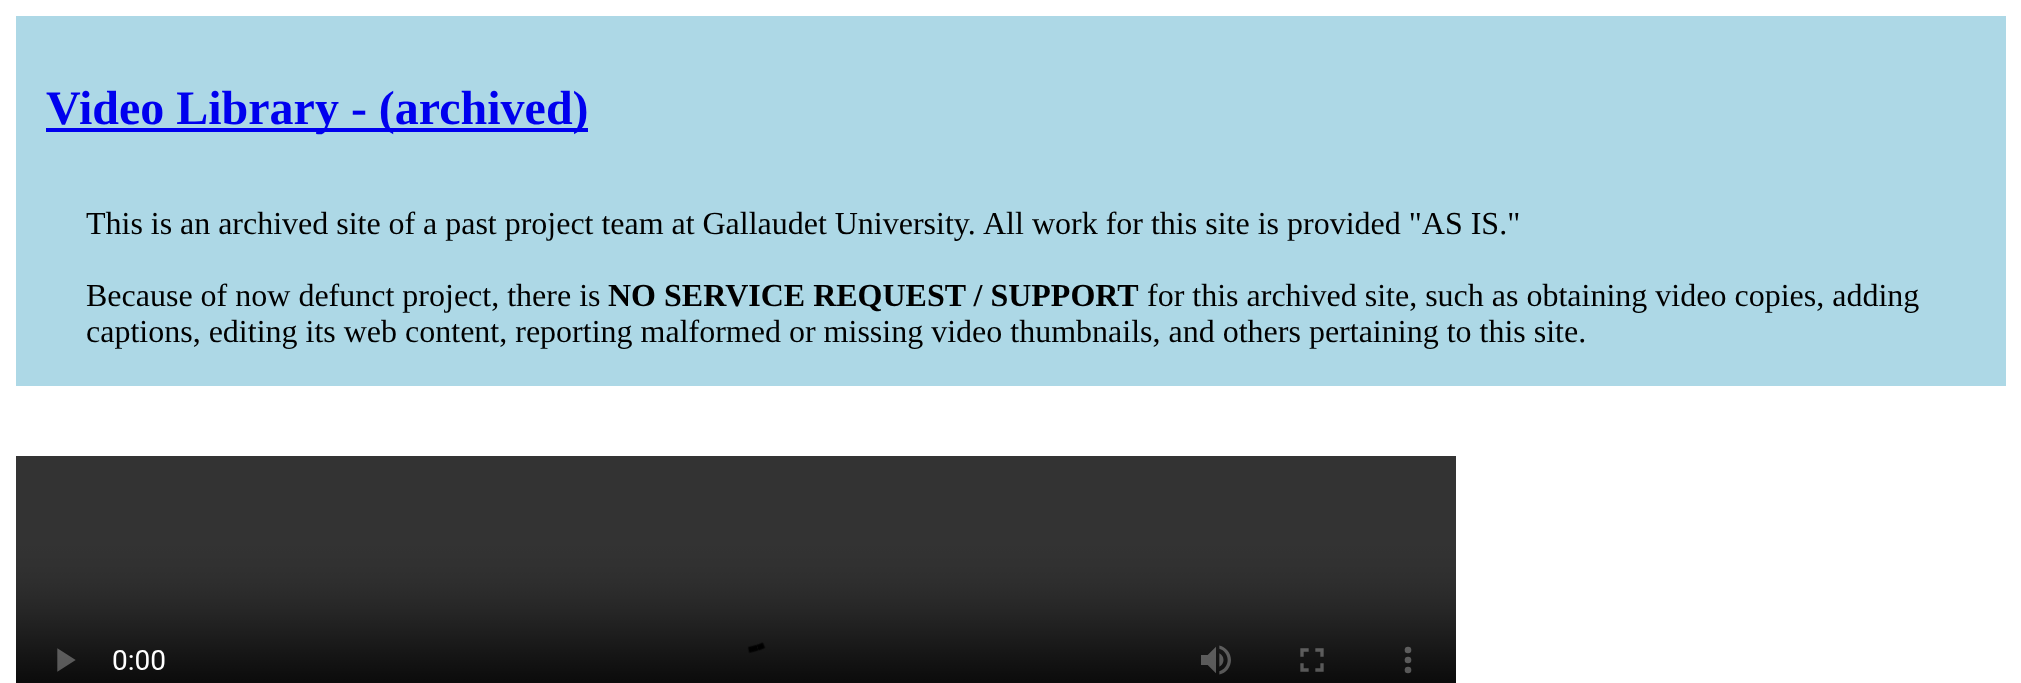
<!DOCTYPE html>
<meta charset="utf-8">
<style>body { margin: 0 } canvas { display: block }</style>
<canvas id="canvas" width="2021" height="683"></canvas>
<script type="module">
  const canvas = document.getElementById("canvas");
  const g = canvas.getContext("2d");
  g.miterLimit = 4;
  g.fontKerning = "normal";
  function drawText(s, x, y, [font, color]) {
    g.font = font;
    g.fillStyle = color;
    g.fillText(s, x, y);
  }
  function fillBox(x, y, w, h, color) {
    g.fillStyle = color;
    g.fillRect(x, y, w, h);
  }
  async function drawPicture(src, x, y, w, h) {
    const img = new Image();
    img.src = src;
    await img.decode();
    g.drawImage(img, x, y, w, h);
  }

  const s1 = ["bold 48px Liberation Serif", "#0000EE"];
  const s2 = ["32px Liberation Serif", "#000000"];
  const s3 = ["bold 32px Liberation Serif", "#000000"];

  fillBox(0, 0, 2021, 683, "#FFFFFF");
  fillBox(16, 16, 1990, 370, "#ADD8E6");
  fillBox(46, 128, 542, 4, "#0000EE");
  drawText("Video Library - (archived)", 46, 124, s1);
  g.wordSpacing = "-0.1px";
  drawText("This is an archived site of a past project team at Gallaudet University.", 86, 234, s2);
  g.wordSpacing = "0px";
  drawText("All work for this site is provided \"AS IS.\"", 983, 234, s2);
  drawText("Because of now defunct project, there is", 86, 306, s2);
  drawText("NO SERVICE REQUEST / SUPPORT", 608, 306, s3);
  drawText("for this archived site, such as obtaining video copies, adding", 1147, 306, s2);
  drawText("captions, editing its web content, reporting malformed or missing video thumbnails, and others pertaining to this site.", 86, 342, s2);
  await drawPicture("pic1.png", 16, 456, 1440, 227);
</script>
